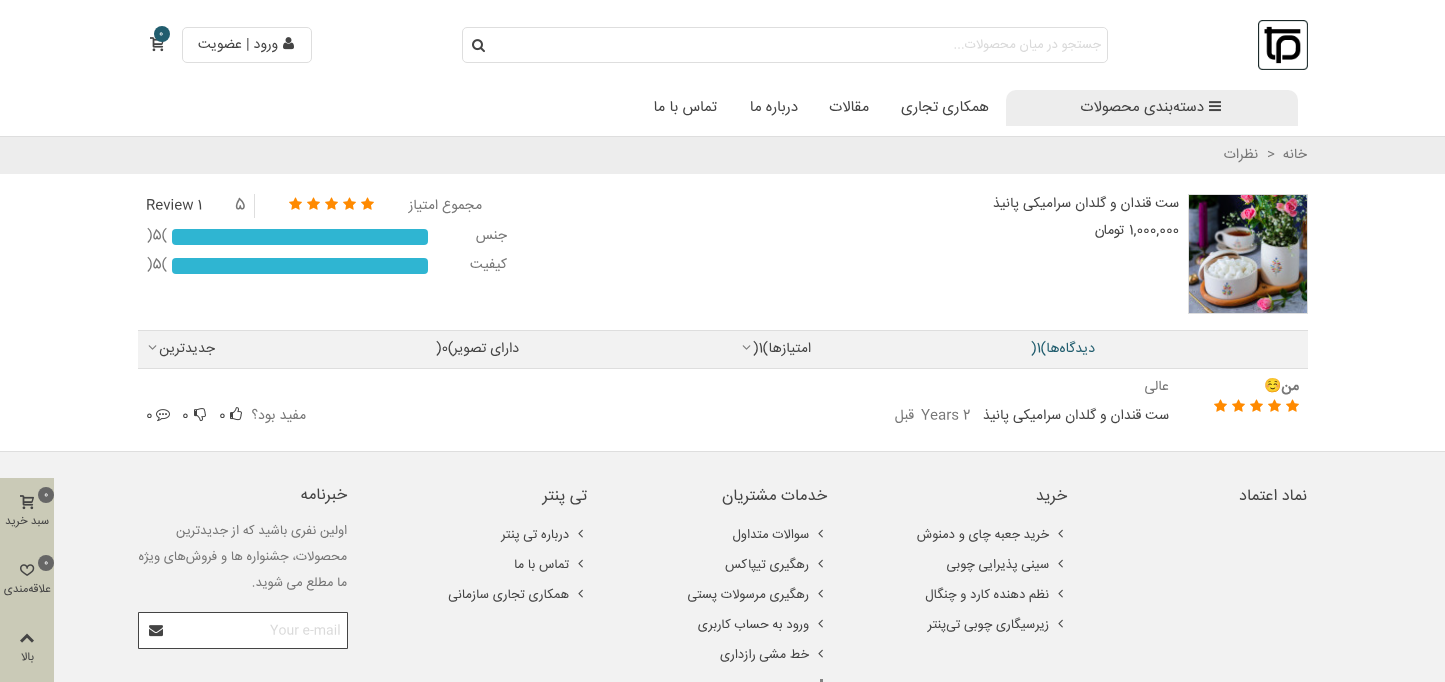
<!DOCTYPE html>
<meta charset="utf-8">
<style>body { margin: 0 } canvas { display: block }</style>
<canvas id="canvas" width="1445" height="682"></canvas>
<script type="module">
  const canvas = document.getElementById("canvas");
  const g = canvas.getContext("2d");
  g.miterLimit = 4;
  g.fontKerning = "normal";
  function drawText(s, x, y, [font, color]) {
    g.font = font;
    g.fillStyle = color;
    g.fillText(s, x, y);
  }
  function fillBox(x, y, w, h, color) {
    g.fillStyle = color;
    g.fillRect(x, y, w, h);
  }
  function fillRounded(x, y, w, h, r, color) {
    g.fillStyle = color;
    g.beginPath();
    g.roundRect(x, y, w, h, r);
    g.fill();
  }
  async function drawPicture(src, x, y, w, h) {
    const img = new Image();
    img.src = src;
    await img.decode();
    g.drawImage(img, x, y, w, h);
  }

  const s1 = ["13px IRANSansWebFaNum", "#DADADA"];
  const s2 = ["9px IRANSansWebFaNum", "#FFFFFF"];
  const s3 = ["14px IRANSansWebFaNum", "#444444"];
  const s4 = ["15px IRANSansWebFaNum", "#444444"];
  const s5 = ["14px IRANSansWebFaNum", "#777777"];
  const s6 = ["16px IRANSansWebFaNum", "#777777"];
  const s7 = ["14px IRANSansWebFaNum", "#215D6E"];
  const s8 = ["bold 14px IRANSansWebFaNum", "#777777"];
  const s9 = ["bold 14px Noto Color Emoji", "#777777"];
  const s10 = ["16px IRANSansWebFaNum", "#444444"];
  const s11 = ["13px IRANSansWebFaNum", "#444444"];
  const s12 = ["13px IRANSansWebFaNum", "#777777"];
  const s13 = ["11.5px IRANSansWebFaNum", "#444444"];

  fillBox(0, 0, 1445, 682, "#FFFFFF");
  fillBox(0, 136, 1445, 1, "#DEDEDE");
  await drawPicture("pic1.png", 1258, 20, 50, 50);
  g.beginPath();
  g.roundRect(462.5, 27.5, 645, 35, 4.5);
  g.strokeStyle = "#DEDEDE";
  g.stroke();
  g.fillStyle = "#FFFFFF";
  g.beginPath();
  g.roundRect(496, 28, 611, 34, [0, 5, 5, 0]);
  g.fill();
  g.direction = "rtl";
  drawText("جستجو در میان محصولات...", 1101, 48, s1);
  await drawPicture("pic2.png", 472, 39, 13, 14);
  await drawPicture("pic3.png", 150, 37, 14, 15);
  g.fillStyle = "#215D6E";
  g.beginPath();
  g.arc(162, 34, 8, 0, Math.PI * 2);
  g.fill();
  g.direction = "ltr";
  drawText("0", 159, 36, s2);
  g.beginPath();
  g.roundRect(182.5, 27.5, 129, 35, 4.5);
  g.stroke();
  await drawPicture("pic4.png", 283, 37, 11, 13);
  g.direction = "rtl";
  drawText("ورود | عضویت", 278, 48, s3);
  g.fillStyle = "#EDEDED";
  g.beginPath();
  g.roundRect(1006, 90, 292, 36, [10, 10, 0, 0]);
  g.fill();
  await drawPicture("pic5.png", 1209, 101, 12, 11);
  drawText("دسته‌بندی محصولات", 1204, 111, s4);
  drawText("همکاری تجاری", 989, 111, s4);
  drawText("مقالات", 869, 111, s4);
  drawText("درباره ما", 798, 111, s4);
  drawText("تماس با ما", 717, 111, s4);
  fillBox(0, 137, 1445, 37, "#EDEDED");
  drawText("خانه", 1307, 158, s5);
  g.direction = "ltr";
  drawText(">", 1267, 158, s5);
  g.direction = "rtl";
  drawText("نظرات", 1258, 158, s5);
  g.strokeRect(1188.5, 194.5, 119, 119);
  await drawPicture("pic6.png", 1189, 195, 118, 118);
  drawText("ست قندان و گلدان سرامیکی پانیذ", 1179, 207, s3);
  g.direction = "ltr";
  drawText("1,000,000", 1129, 234, s3);
  g.direction = "rtl";
  drawText("تومان", 1125, 234, s3);
  drawText("مجموع امتیاز", 482, 209, s5);
  await drawPicture("pic7.png", 361, 197, 13, 13);
  await drawPicture("pic7.png", 343, 197, 13, 13);
  await drawPicture("pic7.png", 325, 197, 13, 13);
  await drawPicture("pic7.png", 307, 197, 13, 13);
  await drawPicture("pic7.png", 289, 197, 13, 13);
  fillBox(254, 194, 1, 24, "#DEDEDE");
  g.direction = "ltr";
  drawText("5", 235, 209, s6);
  drawText("Review 1", 146, 209, s3);
  g.direction = "rtl";
  drawText("جنس", 507, 239, s5);
  fillRounded(172, 229, 256, 16, 4, "#2FB5D2");
  g.direction = "ltr";
  drawText(")5(", 147, 239, s5);
  g.direction = "rtl";
  drawText("کیفیت", 507, 268, s5);
  fillRounded(172, 258, 256, 16, 4, "#2FB5D2");
  g.direction = "ltr";
  drawText(")5(", 147, 268, s5);
  fillBox(138, 331, 1170, 37, "#F2F2F2");
  fillBox(138, 330, 1170, 1, "#DEDEDE");
  fillBox(138, 368, 1170, 1, "#DEDEDE");
  g.direction = "rtl";
  drawText("دیدگاه‌ها", 1095, 352, s7);
  g.direction = "ltr";
  drawText(")1(", 1031, 352, s7);
  g.direction = "rtl";
  drawText("امتیازها", 811, 352, s3);
  g.direction = "ltr";
  drawText(")1(", 753, 352, s3);
  await drawPicture("pic8.png", 742, 345, 9, 5);
  g.direction = "rtl";
  drawText("دارای تصویر", 519, 352, s3);
  g.direction = "ltr";
  drawText(")0(", 436, 352, s3);
  g.direction = "rtl";
  drawText("جدیدترین", 215, 352, s3);
  await drawPicture("pic8.png", 148, 345, 9, 5);
  drawText("من", 1299, 390, s8);
  drawText("☺️", 1282, 390, s9);
  await drawPicture("pic7.png", 1286, 399, 13, 13);
  await drawPicture("pic7.png", 1268, 399, 13, 13);
  await drawPicture("pic7.png", 1250, 399, 13, 13);
  await drawPicture("pic7.png", 1232, 399, 13, 13);
  await drawPicture("pic7.png", 1214, 399, 13, 13);
  drawText("عالی", 1169, 390, s5);
  drawText("ست قندان و گلدان سرامیکی پانیذ", 1169, 419, s3);
  g.direction = "ltr";
  drawText("Years 2", 921, 419, s5);
  g.direction = "rtl";
  drawText("قبل", 914, 419, s5);
  drawText("مفید بود؟", 306, 419, s5);
  await drawPicture("pic9.png", 230, 407, 12, 14);
  g.direction = "ltr";
  drawText("0", 219, 419, s3);
  await drawPicture("pic10.png", 194, 408, 12, 14);
  drawText("0", 182, 419, s3);
  await drawPicture("pic11.png", 156, 409, 14, 13);
  drawText("0", 146, 419, s3);
  fillBox(0, 452, 1445, 230, "#F2F2F2");
  fillBox(0, 451, 1445, 1, "#DEDEDE");
  g.direction = "rtl";
  drawText("نماد اعتماد", 1307, 500, s10);
  drawText("خرید", 1067, 500, s10);
  await drawPicture("pic12.png", 1058, 529, 5, 9);
  drawText("خرید جعبه چای و دمنوش", 1049, 538, s11);
  await drawPicture("pic12.png", 1058, 559, 5, 9);
  drawText("سینی پذیرایی چوبی", 1049, 568, s11);
  await drawPicture("pic12.png", 1058, 589, 5, 9);
  drawText("نظم دهنده کارد و چنگال", 1049, 598, s11);
  await drawPicture("pic12.png", 1058, 619, 5, 9);
  drawText("زیرسیگاری چوبی تی‌پنتر", 1049, 628, s11);
  drawText("خدمات مشتریان", 827, 500, s10);
  await drawPicture("pic12.png", 818, 529, 5, 9);
  drawText("سوالات متداول", 809, 538, s11);
  await drawPicture("pic12.png", 818, 559, 5, 9);
  drawText("رهگیری تیپاکس", 809, 568, s11);
  await drawPicture("pic12.png", 818, 589, 5, 9);
  drawText("رهگیری مرسولات پستی", 809, 598, s11);
  await drawPicture("pic12.png", 818, 619, 5, 9);
  drawText("ورود به حساب کاربری", 809, 628, s11);
  await drawPicture("pic12.png", 818, 649, 5, 9);
  drawText("خط مشی رازداری", 809, 658, s11);
  fillBox(820, 679, 3, 3, "#838383");
  drawText("تی پنتر", 587, 500, s10);
  await drawPicture("pic12.png", 578, 529, 5, 9);
  drawText("درباره تی پنتر", 569, 538, s11);
  await drawPicture("pic12.png", 578, 559, 5, 9);
  drawText("تماس با ما", 569, 568, s11);
  await drawPicture("pic12.png", 578, 589, 5, 9);
  drawText("همکاری تجاری سازمانی", 569, 598, s11);
  drawText("خبرنامه", 347, 499, s10);
  drawText("اولین نفری باشید که از جدیدترین", 347, 534, s12);
  drawText("محصولات، جشنواره ها و فروش‌های ویژه", 347, 560, s12);
  drawText("ما مطلع می شوید.", 347, 586, s12);
  g.fillStyle = "#FFFFFF";
  g.beginPath();
  g.rect(138.5, 612.5, 209, 36);
  g.fill();
  g.strokeStyle = "#444444";
  g.stroke();
  g.direction = "ltr";
  drawText("Your e-mail", 270, 634, s1);
  await drawPicture("pic13.png", 149, 625, 14, 12);
  fillBox(0, 478, 54, 204, "#CACAB7");
  g.fillStyle = "#666666";
  g.beginPath();
  g.arc(46, 495, 8, 0, Math.PI * 2);
  g.fill();
  drawText("0", 44, 497, s2);
  await drawPicture("pic14.png", 20, 495, 14, 15);
  g.direction = "rtl";
  drawText("سبد خرید", 49, 524, s13);
  g.fillStyle = "#666666";
  g.beginPath();
  g.arc(46, 563, 8, 0, Math.PI * 2);
  g.fill();
  g.direction = "ltr";
  drawText("0", 44, 565, s2);
  await drawPicture("pic15.png", 20, 564, 15, 12);
  g.direction = "rtl";
  drawText("علاقه‌مندی", 51, 592, s13);
  await drawPicture("pic16.png", 20, 633, 14, 10);
  drawText("بالا", 34, 660, s13);
</script>
